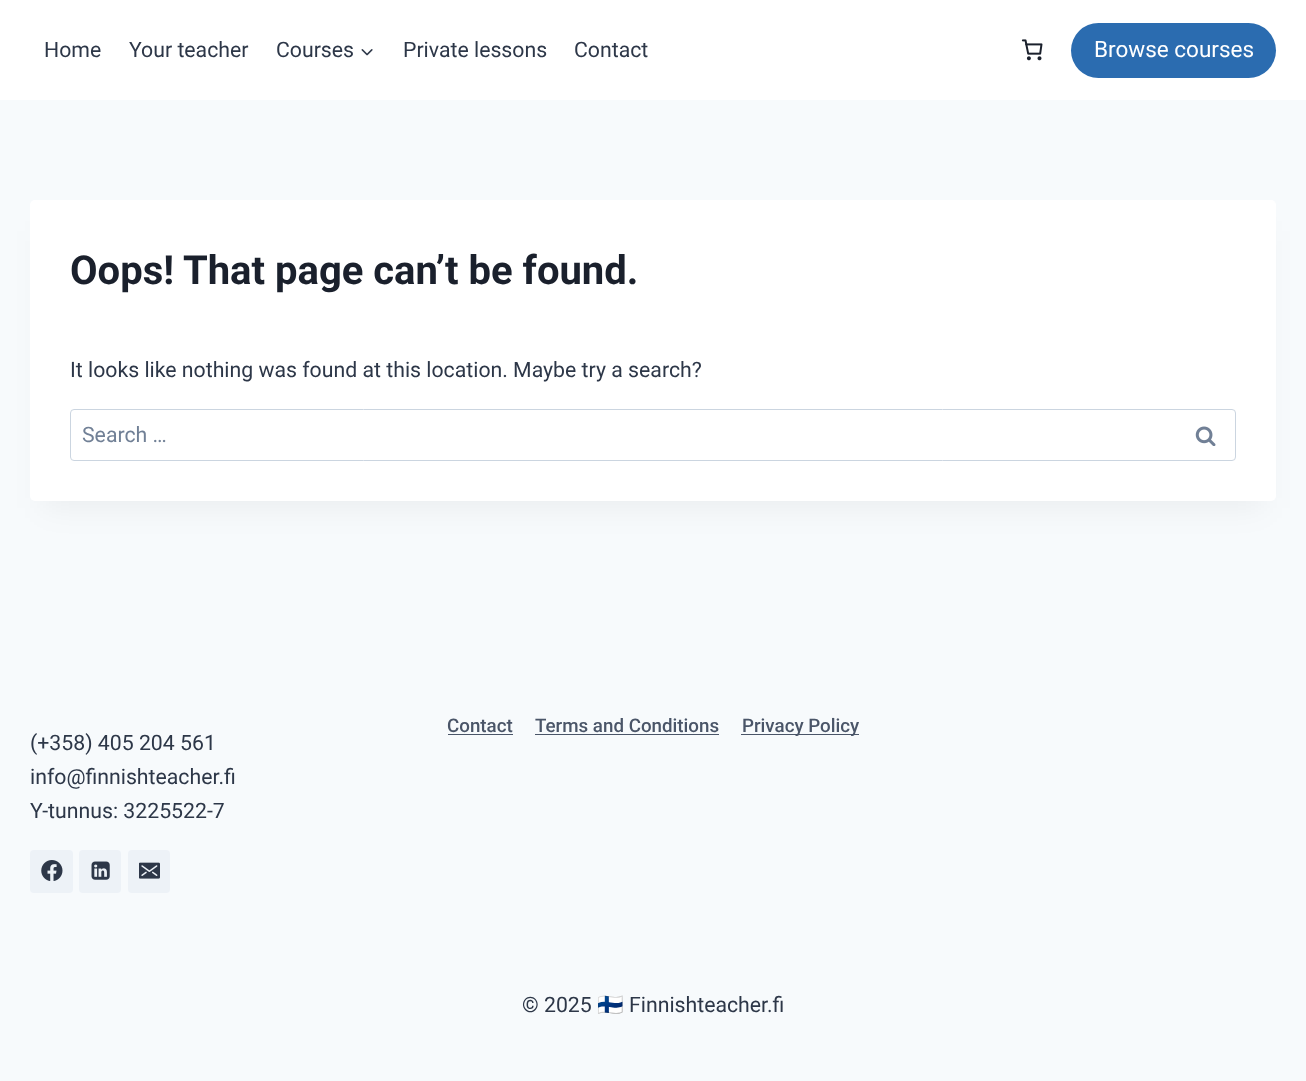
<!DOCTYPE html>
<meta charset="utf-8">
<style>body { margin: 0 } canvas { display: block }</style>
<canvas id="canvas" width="1306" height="1081"></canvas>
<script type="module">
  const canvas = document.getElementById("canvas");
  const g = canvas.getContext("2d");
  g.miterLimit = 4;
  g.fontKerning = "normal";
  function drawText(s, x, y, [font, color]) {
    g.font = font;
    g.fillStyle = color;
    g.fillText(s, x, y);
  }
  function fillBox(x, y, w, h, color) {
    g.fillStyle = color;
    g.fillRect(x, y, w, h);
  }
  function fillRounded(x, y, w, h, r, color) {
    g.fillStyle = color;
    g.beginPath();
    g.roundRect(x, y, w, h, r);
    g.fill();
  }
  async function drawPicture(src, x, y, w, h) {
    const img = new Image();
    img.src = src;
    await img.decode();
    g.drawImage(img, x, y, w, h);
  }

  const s1 = ["21.25px Roboto", "#2D3748"];
  const s2 = ["22.5px Roboto", "#FFFFFF"];
  const s3 = ["bold 40px Roboto", "#1A202C"];
  const s4 = ["21.25px Roboto", "#718096"];
  const s5 = ["500 18.75px Roboto", "#4A5568"];
  const s6 = ["21.25px Noto Color Emoji", "#2D3748"];

  fillBox(0, 0, 1306, 1081, "#F7FAFC");
  fillBox(0, 0, 1306, 100, "#FFFFFF");
  drawText("Home", 44, 57, s1);
  drawText("Your teacher", 129, 57, s1);
  drawText("Courses", 276, 57, s1);
  await drawPicture("pic1.png", 361, 49, 12, 7);
  drawText("Private lessons", 403, 57, s1);
  drawText("Contact", 574, 57, s1);
  await drawPicture("pic2.png", 1021, 39, 22, 22);
  fillRounded(1071, 23, 205, 55, 27.5, "#2B6CB0");
  drawText("Browse courses", 1094, 57, s2);
  g.fillStyle = "rgba(0, 0, 0, 0.05)";
  g.filter = "blur(15.5px)";
  g.beginPath();
  g.rect(43, 231, 1221, 277);
  g.fill();
  g.filter = "none";
  fillRounded(30, 200, 1246, 301, 5, "#FFFFFF");
  drawText("Oops! That page can’t be found.", 70, 284, s3);
  drawText("It looks like nothing was found at this location. Maybe try a search?", 70, 377, s1);
  g.beginPath();
  g.roundRect(70.5, 409.5, 1165, 51, 3.5);
  g.strokeStyle = "#CBD5E0";
  g.stroke();
  drawText("Search …", 82, 442, s4);
  await drawPicture("pic3.png", 1195, 426, 21, 20);
  drawText("Contact", 447, 732, s5);
  fillBox(448, 734, 65, 1, "#4A5568");
  drawText("Terms and Conditions", 535, 732, s5);
  fillBox(535, 734, 184, 1, "#4A5568");
  fillBox(741, 734, 118, 1, "#4A5568");
  drawText("Privacy Policy", 742, 732, s5);
  drawText("(+358) 405 204 561", 30, 750, s1);
  drawText("info@finnishteacher.fi", 30, 784, s1);
  drawText("Y-tunnus: 3225522-7", 30, 818, s1);
  fillRounded(30, 850, 43, 43, 4, "#EDF2F7");
  await drawPicture("pic4.png", 41, 860, 22, 21);
  fillRounded(79, 850, 42, 43, 4, "#EDF2F7");
  await drawPicture("pic5.png", 91, 861, 19, 19);
  fillRounded(128, 850, 42, 43, 4, "#EDF2F7");
  await drawPicture("pic6.png", 139, 862, 21, 17);
  drawText("© 2025", 522, 1012, s1);
  drawText("🇫🇮", 597, 1012, s6);
  drawText("Finnishteacher.fi", 629, 1012, s1);
</script>
